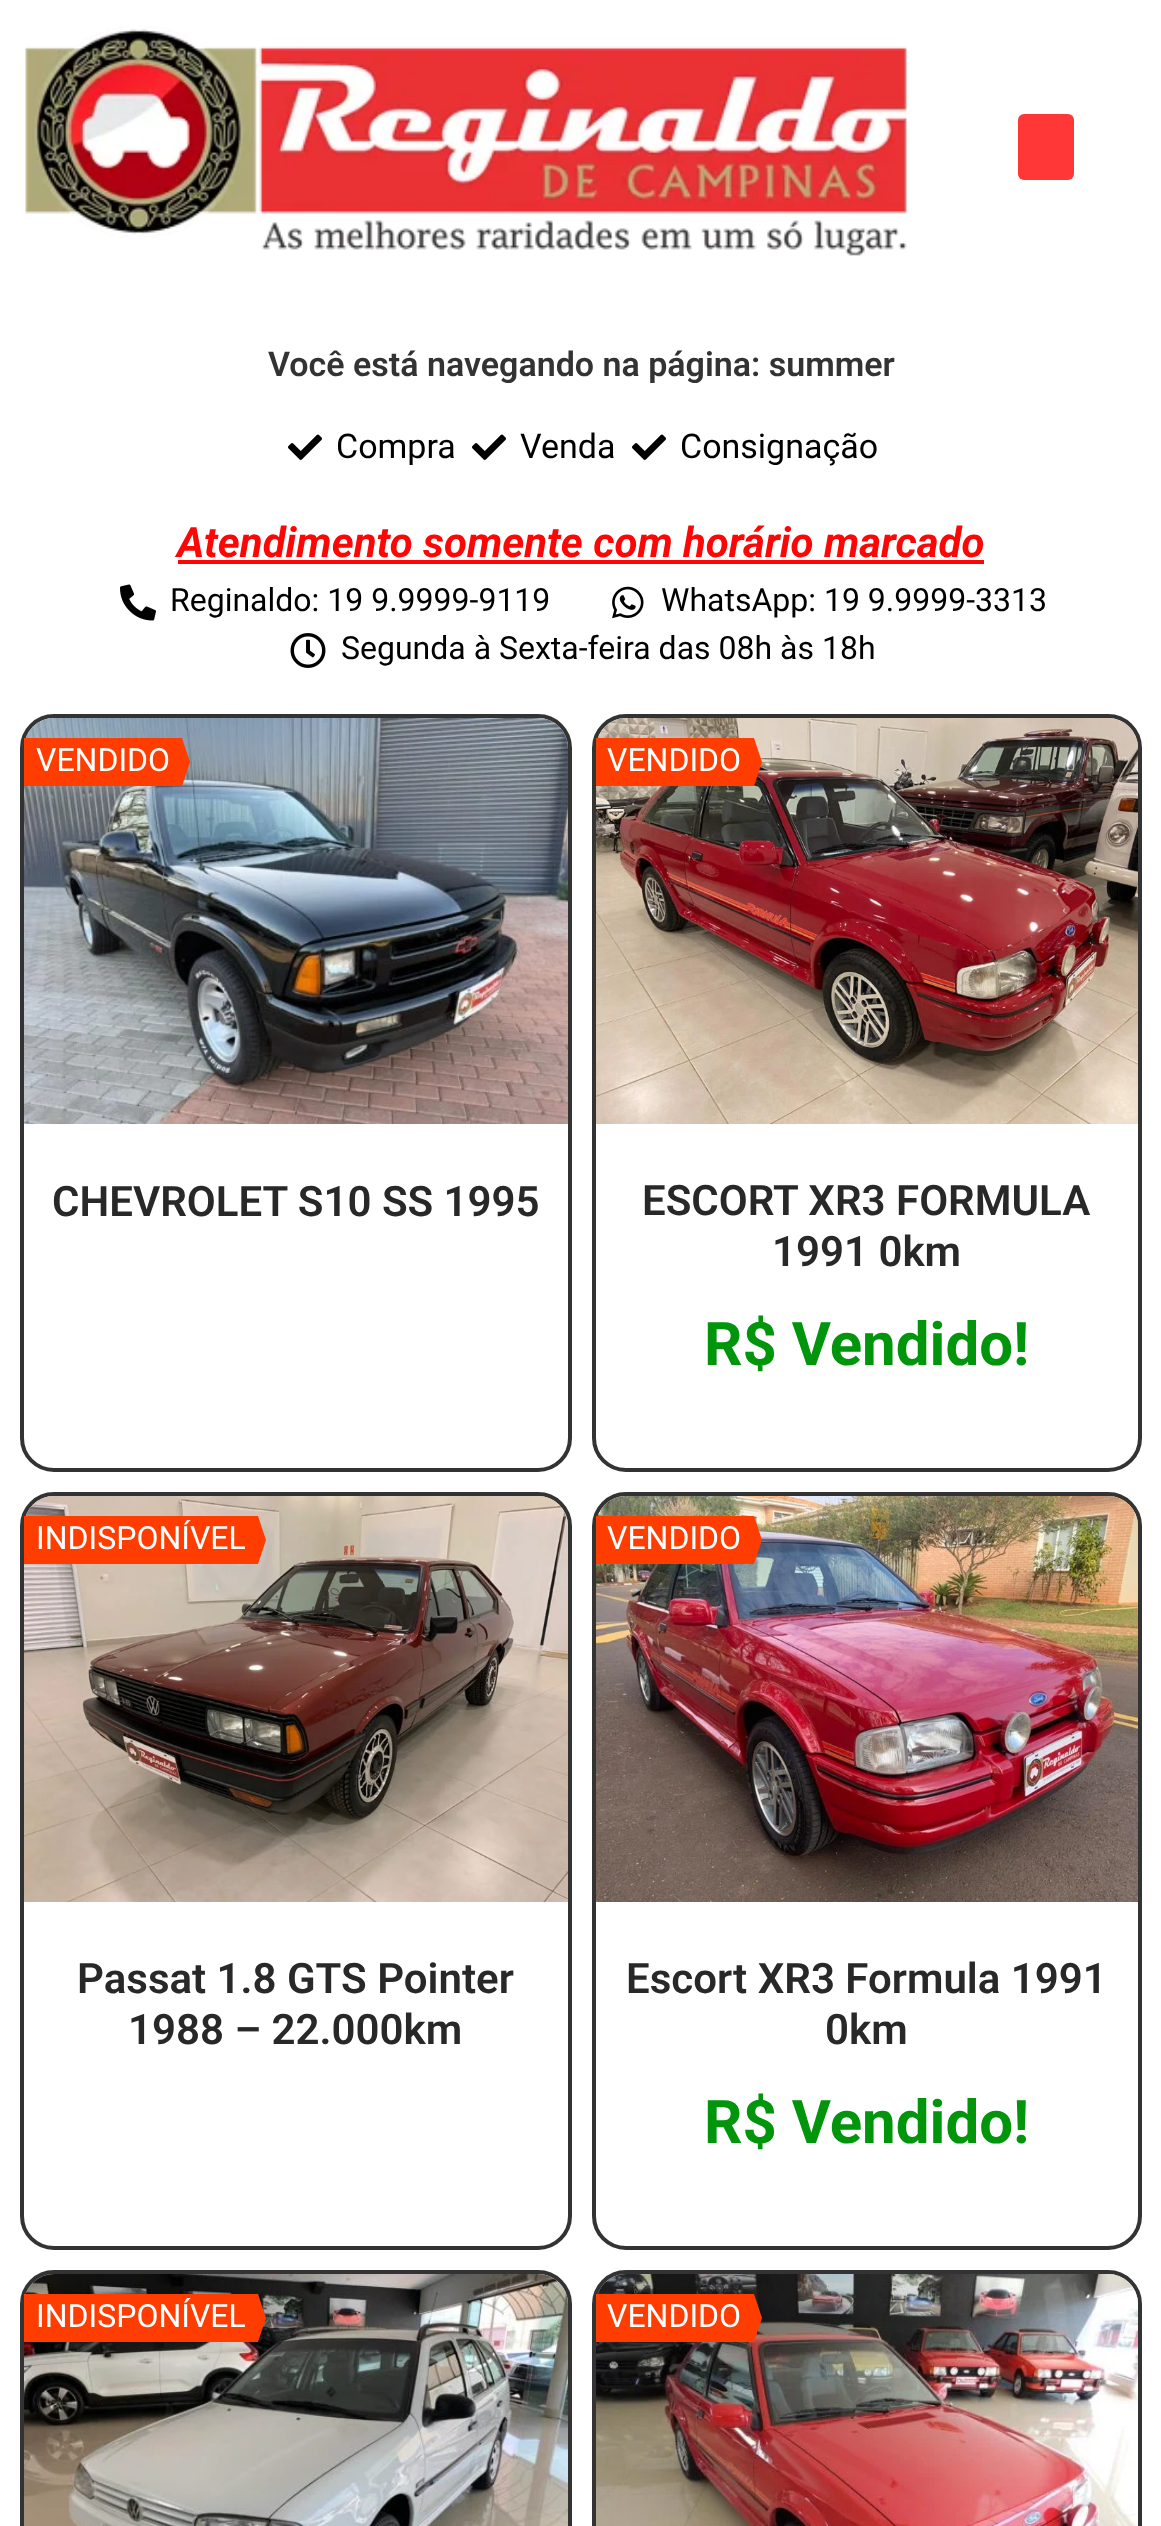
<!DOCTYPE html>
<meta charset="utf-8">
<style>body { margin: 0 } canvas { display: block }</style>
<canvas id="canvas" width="1161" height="2526"></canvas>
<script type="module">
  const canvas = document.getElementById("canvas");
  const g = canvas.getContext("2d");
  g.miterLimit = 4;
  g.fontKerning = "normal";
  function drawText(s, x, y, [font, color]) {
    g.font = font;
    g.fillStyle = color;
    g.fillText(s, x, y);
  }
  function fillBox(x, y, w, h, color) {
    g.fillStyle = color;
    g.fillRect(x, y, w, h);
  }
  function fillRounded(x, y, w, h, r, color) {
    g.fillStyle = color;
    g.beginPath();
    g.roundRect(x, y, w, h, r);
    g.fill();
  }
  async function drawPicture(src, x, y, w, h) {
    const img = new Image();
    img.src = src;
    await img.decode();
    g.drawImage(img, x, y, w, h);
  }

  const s1 = ["600 34px Roboto", "#333333"];
  const s2 = ["34px Roboto", "#000000"];
  const s3 = ["italic bold 42px Roboto", "#FF0505"];
  const s4 = ["32px Roboto", "#000000"];
  const s5 = ["32px Roboto", "#FFFFFF"];
  const s6 = ["600 42px Roboto", "#282828"];
  const s7 = ["bold 60px Roboto", "#00950B"];

  fillBox(0, 0, 1161, 2526, "#FFFFFF");
  await drawPicture("pic1.png", 25, 26, 882, 230);
  fillRounded(1018, 114, 56, 66, 6, "#FF3737");
  drawText("Você está navegando na página: summer", 268, 376, s1);
  await drawPicture("pic2.png", 288, 434, 34, 26);
  drawText("Compra", 336, 458, s2);
  await drawPicture("pic2.png", 472, 434, 34, 26);
  drawText("Venda", 520, 458, s2);
  await drawPicture("pic2.png", 632, 434, 34, 26);
  drawText("Consignação", 680, 458, s2);
  drawText("Atendimento somente com horário marcado", 177, 557, s3);
  fillBox(178, 560, 806, 4, "#FF0505");
  await drawPicture("pic3.png", 120, 584, 36, 37);
  drawText("Reginaldo: 19 9.9999-9119", 170, 611, s4);
  await drawPicture("pic4.png", 612, 586, 32, 33);
  drawText("WhatsApp: 19 9.9999-3313", 661, 611, s4);
  await drawPicture("pic5.png", 290, 633, 36, 35);
  drawText("Segunda à Sexta-feira das 08h às 18h", 341, 659, s4);
  g.beginPath();
  g.roundRect(22, 716, 548, 754, 32);
  g.strokeStyle = "#333333";
  g.lineWidth = 4;
  g.stroke();
  await drawPicture("pic6.png", 24, 718, 544, 406);
  fillBox(24, 738, 158, 48, "#FF3D00");
  drawText("VENDIDO", 36, 771, s5);
  g.fillStyle = "#FF3D00";
  g.beginPath();
  g.moveTo(182, 786);
  g.lineTo(182, 738);
  g.lineTo(190, 762);
  g.closePath();
  g.fill();
  drawText("CHEVROLET S10 SS 1995", 52, 1216, s6);
  g.beginPath();
  g.roundRect(594, 716, 546, 754, 32);
  g.stroke();
  await drawPicture("pic7.png", 596, 718, 542, 406);
  fillBox(596, 738, 158, 48, "#FF3D00");
  drawText("VENDIDO", 607, 771, s5);
  g.fillStyle = "#FF3D00";
  g.beginPath();
  g.moveTo(754, 786);
  g.lineTo(754, 738);
  g.lineTo(762, 762);
  g.closePath();
  g.fill();
  drawText("ESCORT XR3 FORMULA", 642, 1215, s6);
  drawText("1991 0km", 772, 1266, s6);
  drawText("R$ Vendido!", 704, 1365, s7);
  g.beginPath();
  g.roundRect(22, 1494, 548, 754, 32);
  g.stroke();
  await drawPicture("pic8.png", 24, 1496, 544, 406);
  fillBox(24, 1516, 234, 48, "#FF3D00");
  drawText("INDISPONÍVEL", 36, 1549, s5);
  g.fillStyle = "#FF3D00";
  g.beginPath();
  g.moveTo(258, 1564);
  g.lineTo(258, 1516);
  g.lineTo(266, 1540);
  g.closePath();
  g.fill();
  drawText("Passat 1.8 GTS Pointer", 77, 1993, s6);
  drawText("1988 – 22.000km", 128, 2044, s6);
  g.beginPath();
  g.roundRect(594, 1494, 546, 754, 32);
  g.stroke();
  await drawPicture("pic9.png", 596, 1496, 542, 406);
  fillBox(596, 1516, 158, 48, "#FF3D00");
  drawText("VENDIDO", 607, 1549, s5);
  g.fillStyle = "#FF3D00";
  g.beginPath();
  g.moveTo(754, 1564);
  g.lineTo(754, 1516);
  g.lineTo(762, 1540);
  g.closePath();
  g.fill();
  drawText("Escort XR3 Formula 1991", 626, 1993, s6);
  drawText("0km", 825, 2044, s6);
  drawText("R$ Vendido!", 704, 2143, s7);
  g.beginPath();
  g.roundRect(22, 2272, 548, 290, 32);
  g.stroke();
  await drawPicture("pic10.png", 24, 2274, 544, 252);
  fillBox(24, 2294, 234, 48, "#FF3D00");
  drawText("INDISPONÍVEL", 36, 2327, s5);
  g.fillStyle = "#FF3D00";
  g.beginPath();
  g.moveTo(258, 2342);
  g.lineTo(258, 2294);
  g.lineTo(266, 2318);
  g.closePath();
  g.fill();
  g.beginPath();
  g.roundRect(594, 2272, 546, 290, 32);
  g.stroke();
  await drawPicture("pic11.png", 596, 2274, 542, 252);
  fillBox(596, 2294, 158, 48, "#FF3D00");
  drawText("VENDIDO", 607, 2327, s5);
  g.fillStyle = "#FF3D00";
  g.beginPath();
  g.moveTo(754, 2342);
  g.lineTo(754, 2294);
  g.lineTo(762, 2318);
  g.closePath();
  g.fill();
</script>
